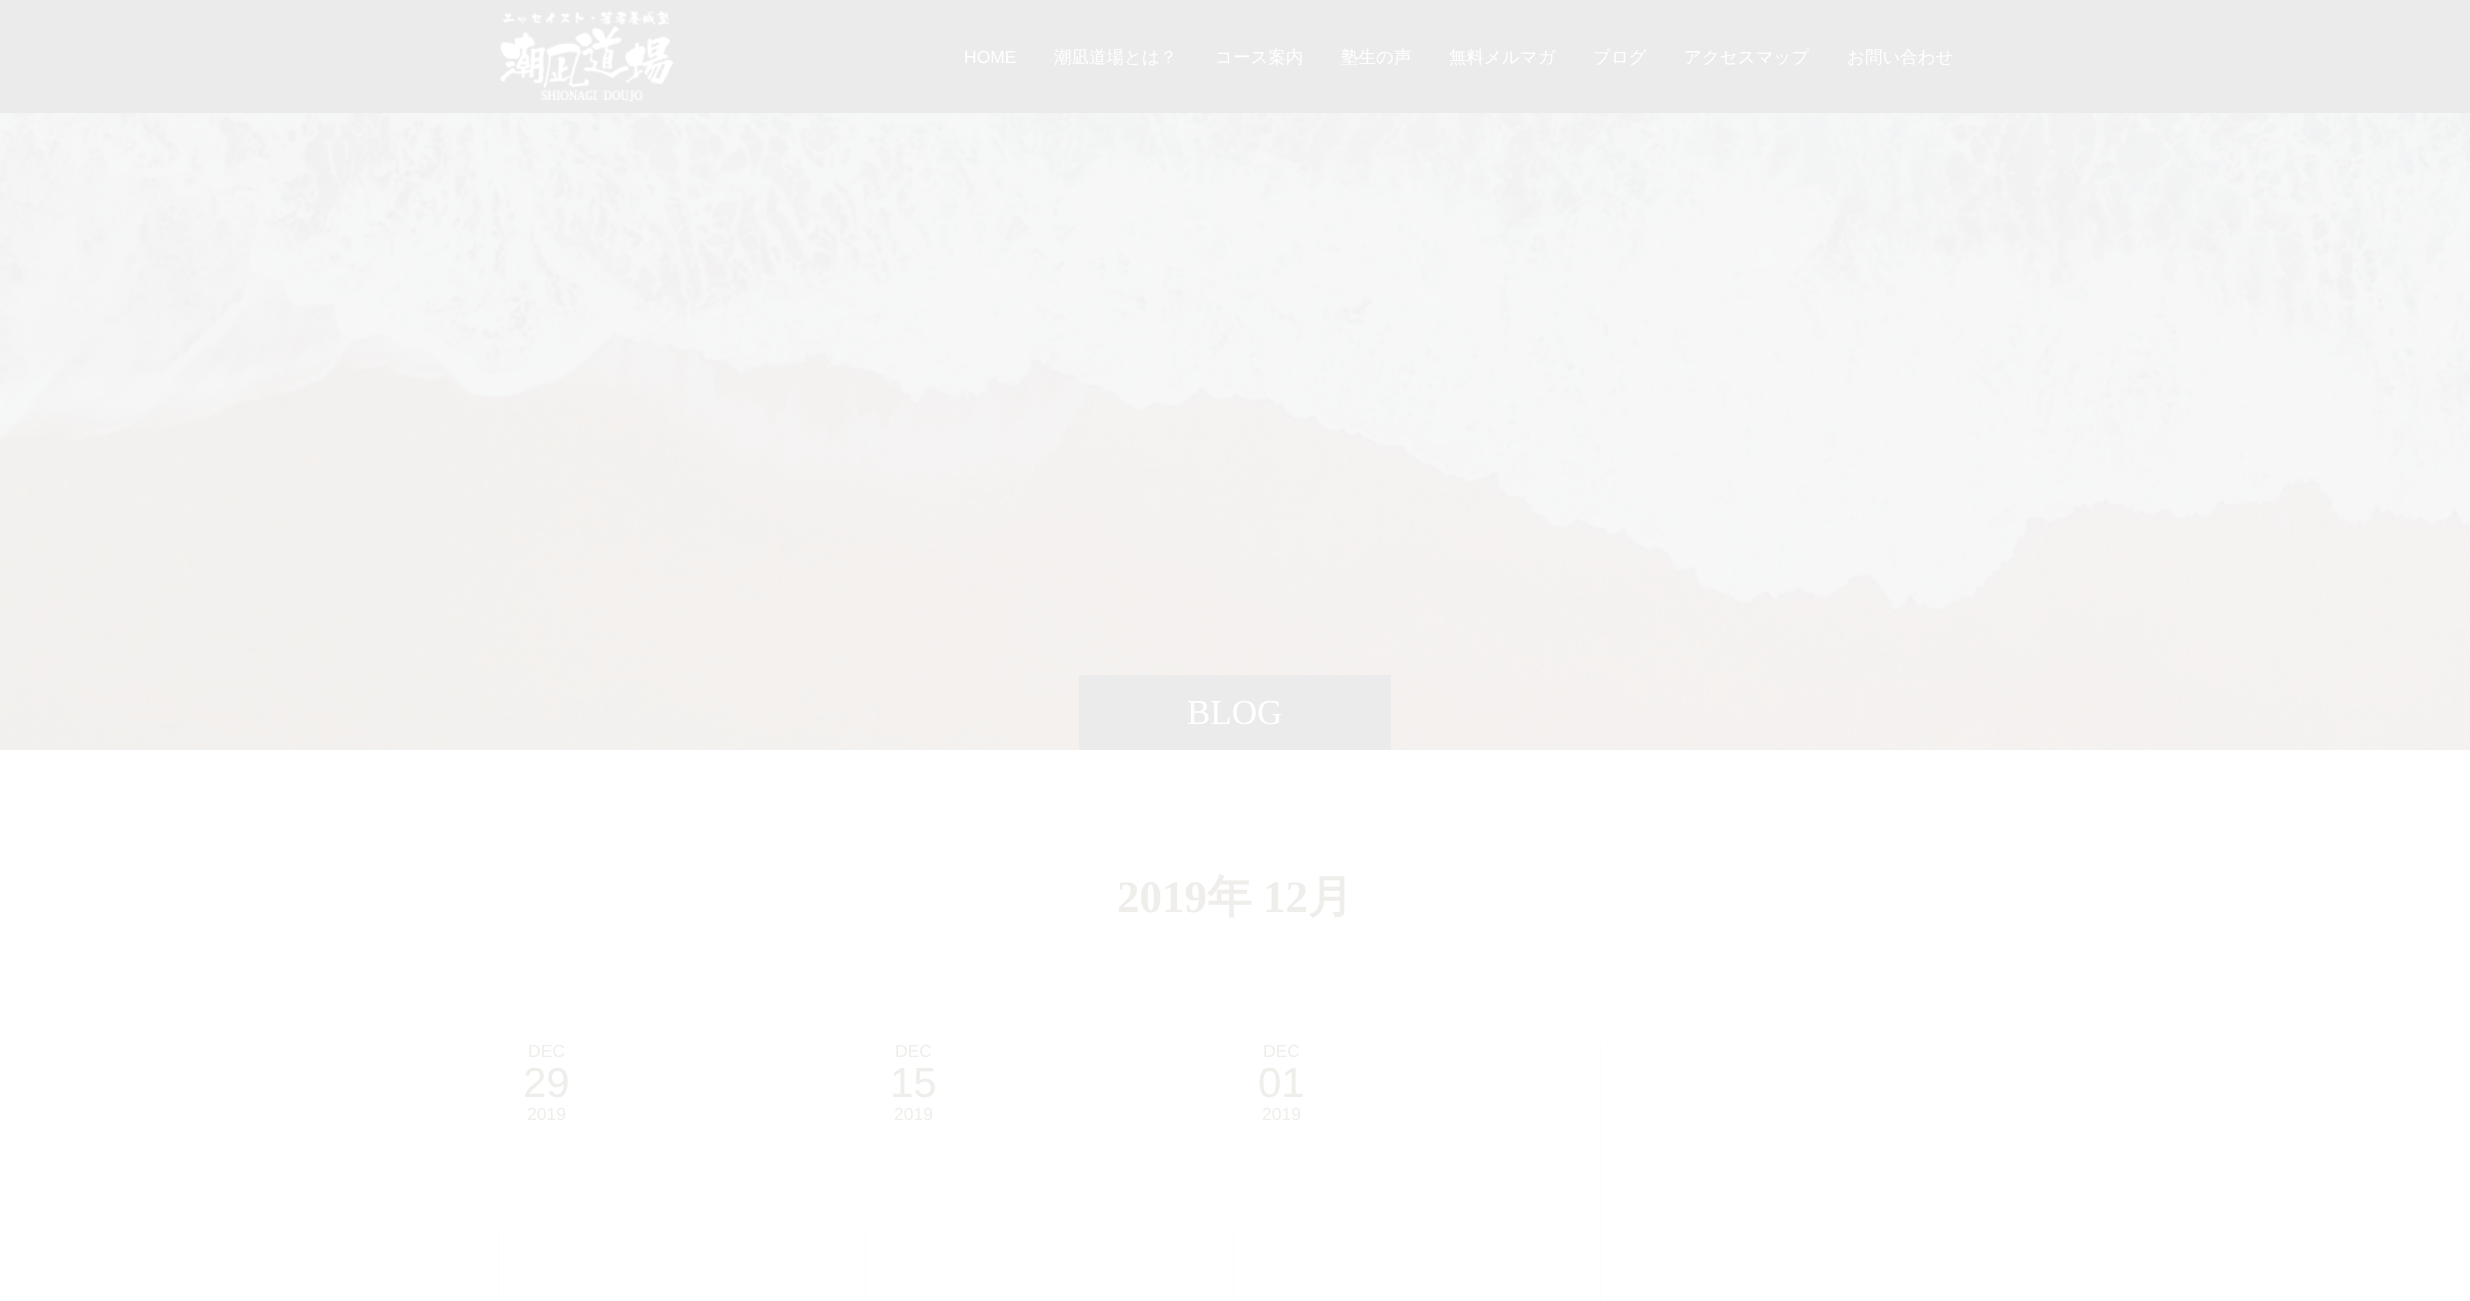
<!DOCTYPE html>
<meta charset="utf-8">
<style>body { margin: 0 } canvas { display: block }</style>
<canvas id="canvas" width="2470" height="1301"></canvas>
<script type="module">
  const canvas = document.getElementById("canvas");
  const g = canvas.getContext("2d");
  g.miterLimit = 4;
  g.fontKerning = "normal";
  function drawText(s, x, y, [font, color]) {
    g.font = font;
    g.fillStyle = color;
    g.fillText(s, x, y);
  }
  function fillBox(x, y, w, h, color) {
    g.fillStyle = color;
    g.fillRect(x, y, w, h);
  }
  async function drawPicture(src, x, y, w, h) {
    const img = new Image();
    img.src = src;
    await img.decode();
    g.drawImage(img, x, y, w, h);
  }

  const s1 = ["17.5px Liberation Sans", "#FFFFFF"];
  const s2 = ["500 17.5px WenQuanYi Zen Hei", "#FFFFFF"];
  const s3 = ["35px Liberation Serif", "#FFFFFF"];
  const s4 = ["bold 45px Liberation Serif", "#F0EEEB"];
  const s5 = ["bold 45px WenQuanYi Zen Hei", "#F0EEEB"];
  const s6 = ["17.5px Liberation Sans", "#F0EEEB"];
  const s7 = ["42px Liberation Sans", "#F0EEEB"];

  fillBox(0, 0, 2470, 1301, "#FFFFFF");
  fillBox(0, 0, 2470, 113, "#EBEBEB");
  await drawPicture("pic1.png", 499, 11, 175, 91);
  drawText("HOME", 964, 63, s1);
  drawText("潮凪道場とは？", 1054, 63, s2);
  drawText("コース案内", 1215, 63, s2);
  drawText("塾生の声", 1341, 63, s2);
  drawText("無料メルマガ", 1449, 63, s2);
  drawText("ブログ", 1593, 63, s2);
  drawText("アクセスマップ", 1684, 63, s2);
  drawText("お問い合わせ", 1847, 63, s2);
  await drawPicture("pic2.png", 0, 113, 2470, 637);
  fillBox(1079, 675, 312, 75, "#EBEBEB");
  drawText("BLOG", 1187, 724, s3);
  drawText("2019", 1117, 912, s4);
  drawText("年", 1207, 912, s5);
  drawText("12", 1263, 912, s4);
  drawText("月", 1308, 912, s5);
  fillBox(865, 1228, 1, 73, "#FCFCFC");
  fillBox(498, 1228, 1, 73, "#FCFCFC");
  drawText("DEC", 528, 1057, s6);
  drawText("29", 523, 1097, s7);
  drawText("2019", 527, 1120, s6);
  fillBox(1233, 1227, 1, 74, "#FCFCFC");
  drawText("DEC", 895, 1057, s6);
  drawText("15", 890, 1097, s7);
  drawText("2019", 894, 1120, s6);
  fillBox(1600, 1043, 1, 258, "#FCFCFC");
  drawText("DEC", 1263, 1057, s6);
  drawText("01", 1258, 1097, s7);
  drawText("2019", 1262, 1120, s6);
</script>
